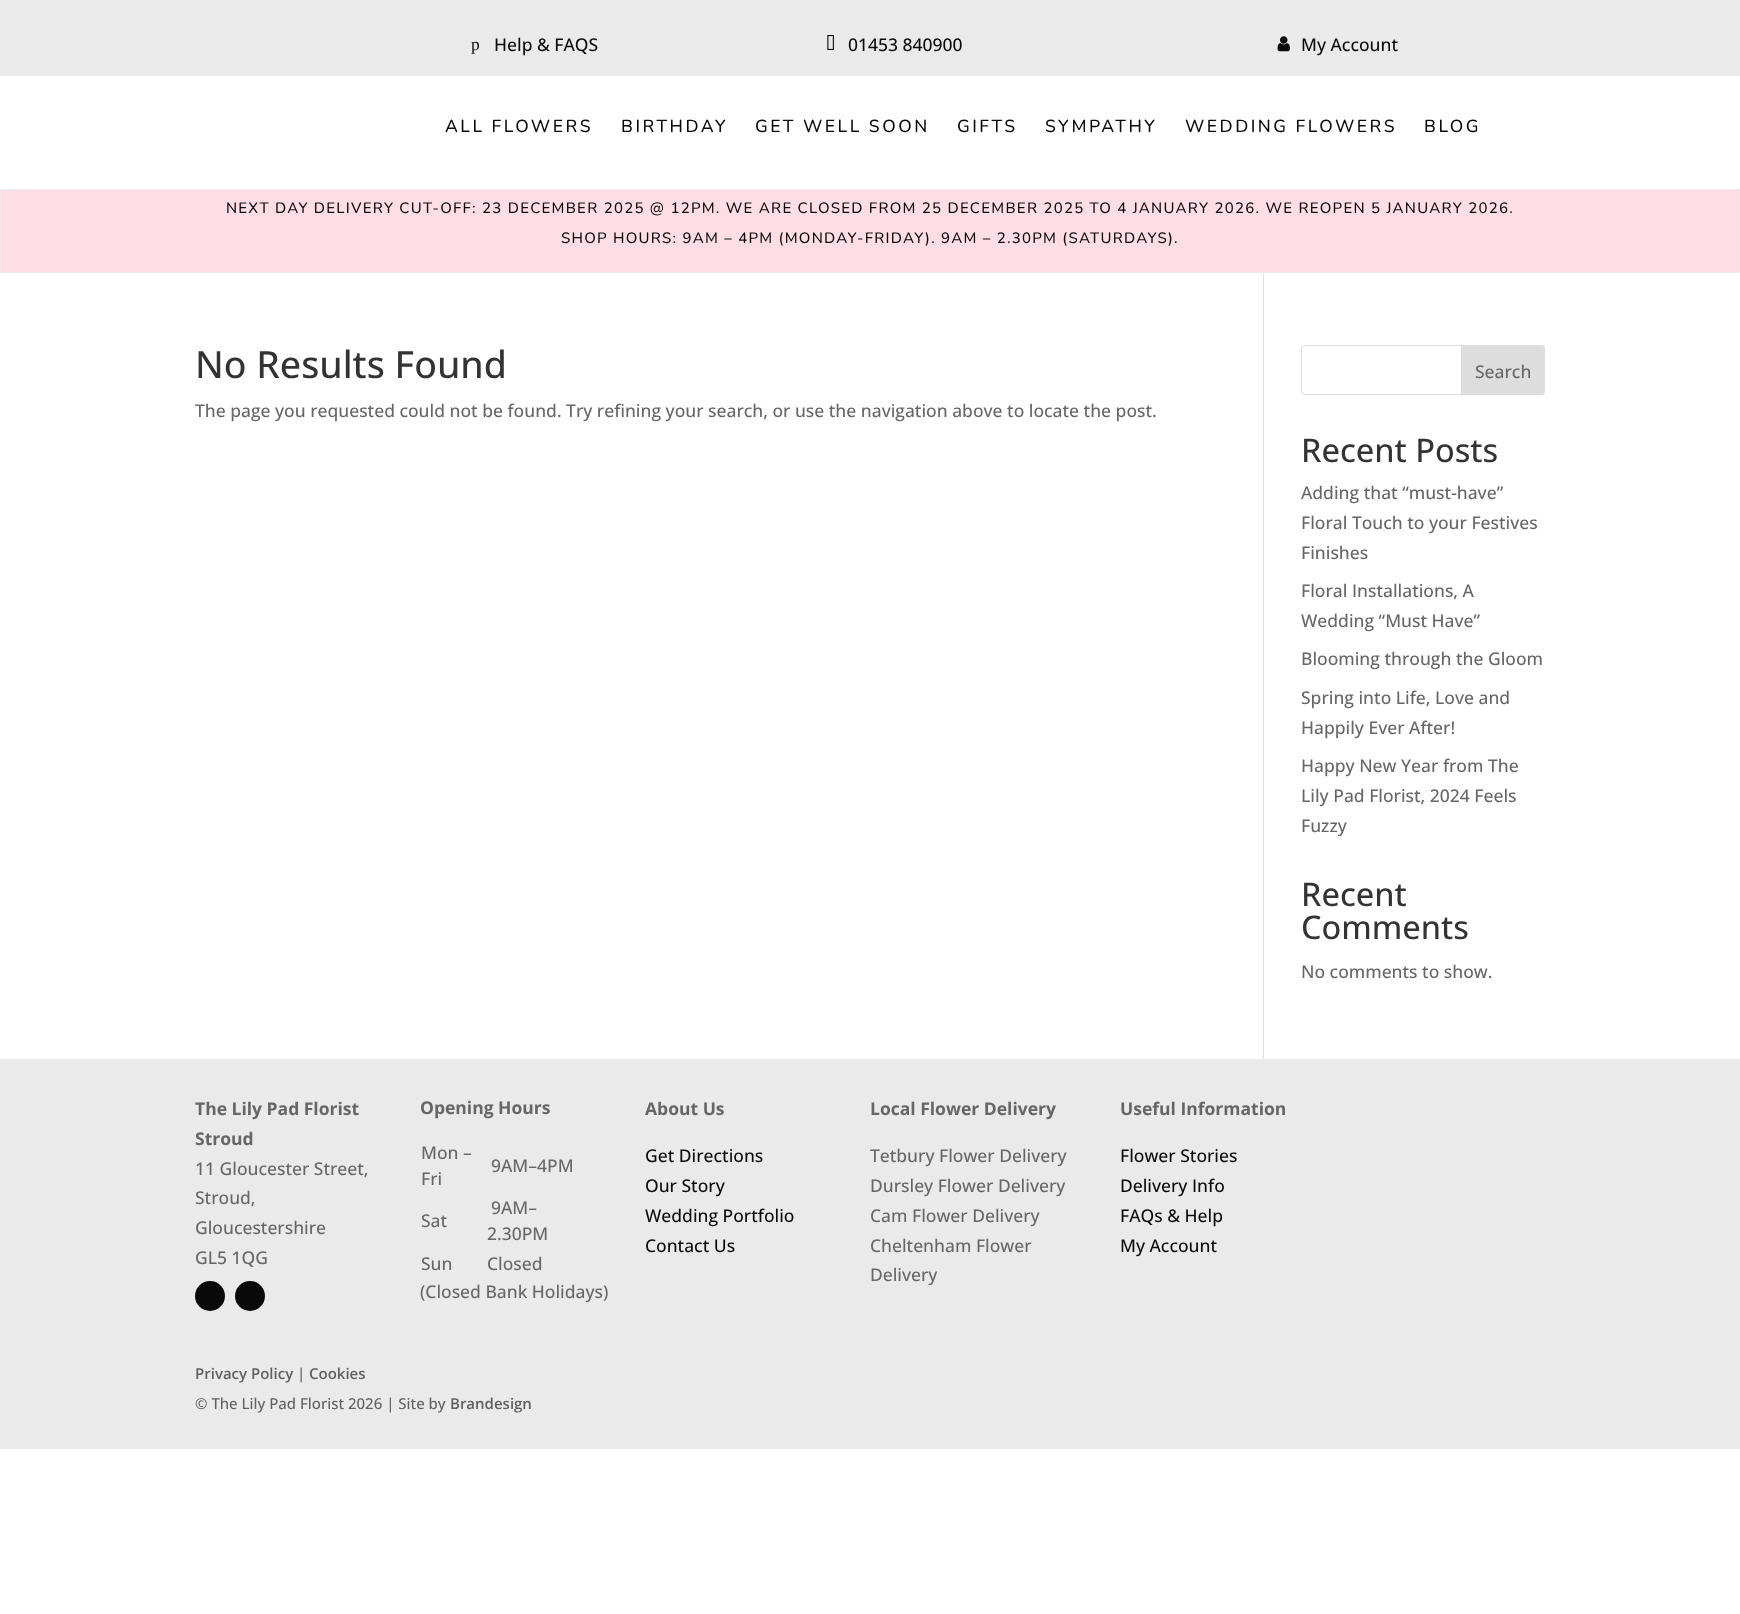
<!DOCTYPE html>
<meta charset="utf-8">
<style>body { margin: 0 } canvas { display: block }</style>
<canvas id="canvas" width="1740" height="1614"></canvas>
<script type="module">
  const canvas = document.getElementById("canvas");
  const g = canvas.getContext("2d");
  g.miterLimit = 4;
  g.fontKerning = "normal";
  function drawText(s, x, y, [font, color]) {
    g.font = font;
    g.fillStyle = color;
    g.fillText(s, x, y);
  }
  function fillBox(x, y, w, h, color) {
    g.fillStyle = color;
    g.fillRect(x, y, w, h);
  }
  async function drawPicture(src, x, y, w, h) {
    const img = new Image();
    img.src = src;
    await img.decode();
    g.drawImage(img, x, y, w, h);
  }

  const s1 = ["17.5px Liberation Serif", "#0A0A0A"];
  const s2 = ["500 17.5px Open Sans", "#0A0A0A"];
  const s3 = ["200 17.5px Nunito", "#0A0A0A"];
  const s4 = ["200 15px Nunito", "#0A0A0A"];
  const s5 = ["500 37.5px Open Sans", "#333333"];
  const s6 = ["500 17.5px Open Sans", "#666666"];
  const s7 = ["500 32.5px Open Sans", "#333333"];
  const s8 = ["bold 17.5px Open Sans", "#666666"];
  const s9 = ["600 15px Open Sans", "#606060"];
  const s10 = ["500 15px Open Sans", "#606060"];

  fillBox(0, 0, 1740, 1614, "#FFFFFF");
  fillBox(0, 0, 1740, 76, "#EAEAEA");
  drawText("p", 471, 50, s1);
  drawText("Help & FAQS", 494, 51, s2);
  await drawPicture("pic1.png", 827, 35, 7, 15);
  drawText("01453 840900", 848, 51, s2);
  await drawPicture("pic2.png", 1277, 36, 13, 16);
  drawText("My Account", 1301, 51, s2);
  g.letterSpacing = "2.5px";
  drawText("ALL FLOWERS", 445, 132, s3);
  drawText("BIRTHDAY", 621, 132, s3);
  drawText("GET WELL SOON", 755, 132, s3);
  drawText("GIFTS", 957, 132, s3);
  drawText("SYMPATHY", 1045, 132, s3);
  drawText("WEDDING FLOWERS", 1185, 132, s3);
  drawText("BLOG", 1424, 132, s3);
  g.fillStyle = "#FFDDE5";
  g.beginPath();
  g.rect(0.5, 189.5, 1739, 83);
  g.fill();
  g.strokeStyle = "#EAEAEA";
  g.stroke();
  g.letterSpacing = "1.25px";
  drawText("NEXT DAY DELIVERY CUT-OFF: 23 DECEMBER 2025 @ 12PM. WE ARE CLOSED FROM 25 DECEMBER 2025 TO 4 JANUARY 2026. WE REOPEN 5 JANUARY 2026.", 226, 213, s4);
  drawText("SHOP HOURS: 9AM – 4PM (MONDAY-FRIDAY). 9AM – 2.30PM (SATURDAYS).", 561, 243, s4);
  fillBox(1263, 273, 1, 786, "#E2E2E2");
  g.letterSpacing = "0px";
  drawText("No Results Found", 195, 378, s5);
  drawText("The page you requested could not be found. Try refining your search, or use the navigation above to locate the post.", 195, 417, s6);
  g.beginPath();
  g.roundRect(1301.5, 345.5, 243, 49, 3.5);
  g.strokeStyle = "#DDDDDD";
  g.stroke();
  g.fillStyle = "#DDDDDD";
  g.beginPath();
  g.roundRect(1461.5, 345.5, 83, 49, [0, 3.5, 3.5, 0]);
  g.fill();
  g.stroke();
  drawText("Search", 1475, 378, s6);
  drawText("Recent Posts", 1301, 462, s7);
  drawText("Adding that “must-have”", 1301, 499, s6);
  drawText("Floral Touch to your Festives", 1301, 529, s6);
  drawText("Finishes", 1301, 559, s6);
  drawText("Floral Installations, A", 1301, 597, s6);
  drawText("Wedding “Must Have”", 1301, 627, s6);
  drawText("Blooming through the Gloom", 1301, 665, s6);
  drawText("Spring into Life, Love and", 1301, 704, s6);
  drawText("Happily Ever After!", 1301, 734, s6);
  drawText("Happy New Year from The", 1301, 772, s6);
  drawText("Lily Pad Florist, 2024 Feels", 1301, 802, s6);
  drawText("Fuzzy", 1301, 832, s6);
  drawText("Recent", 1301, 906, s7);
  drawText("Comments", 1301, 939, s7);
  drawText("No comments to show.", 1301, 978, s6);
  fillBox(0, 1059, 1740, 390, "#EAEAEA");
  drawText("The Lily Pad Florist", 195, 1115, s8);
  drawText("Stroud", 195, 1145, s8);
  drawText("11 Gloucester Street,", 195, 1175, s6);
  drawText("Stroud,", 195, 1204, s6);
  drawText("Gloucestershire", 195, 1234, s6);
  drawText("GL5 1QG", 195, 1264, s6);
  g.fillStyle = "#0A0A0A";
  g.beginPath();
  g.arc(210, 1296, 15, 0, Math.PI * 2);
  g.fill();
  g.beginPath();
  g.arc(250, 1296, 15, 0, Math.PI * 2);
  g.fill();
  drawText("Opening Hours", 420, 1114, s8);
  drawText("Mon –", 421, 1159, s6);
  drawText("Fri", 421, 1185, s6);
  drawText("9AM–4PM", 491, 1172, s6);
  drawText("Sat", 421, 1227, s6);
  drawText("9AM–", 491, 1214, s6);
  drawText("2.30PM", 487, 1240, s6);
  drawText("Sun", 421, 1270, s6);
  drawText("Closed", 487, 1270, s6);
  drawText("(Closed Bank Holidays)", 420, 1298, s6);
  drawText("About Us", 645, 1115, s8);
  drawText("Get Directions", 645, 1162, s2);
  drawText("Our Story", 645, 1192, s2);
  drawText("Wedding Portfolio", 645, 1222, s2);
  drawText("Contact Us", 645, 1252, s2);
  drawText("Local Flower Delivery", 870, 1115, s8);
  drawText("Tetbury Flower Delivery", 870, 1162, s6);
  drawText("Dursley Flower Delivery", 870, 1192, s6);
  drawText("Cam Flower Delivery", 870, 1222, s6);
  drawText("Cheltenham Flower", 870, 1252, s6);
  drawText("Delivery", 870, 1281, s6);
  drawText("Useful Information", 1120, 1115, s8);
  drawText("Flower Stories", 1120, 1162, s2);
  drawText("Delivery Info", 1120, 1192, s2);
  drawText("FAQs & Help", 1120, 1222, s2);
  drawText("My Account", 1120, 1252, s2);
  drawText("Privacy Policy", 195, 1379, s9);
  drawText("|", 297, 1379, s10);
  drawText("Cookies", 309, 1379, s9);
  drawText("© The Lily Pad Florist 2026 | Site by", 195, 1409, s10);
  drawText("Brandesign", 450, 1409, s9);
</script>
